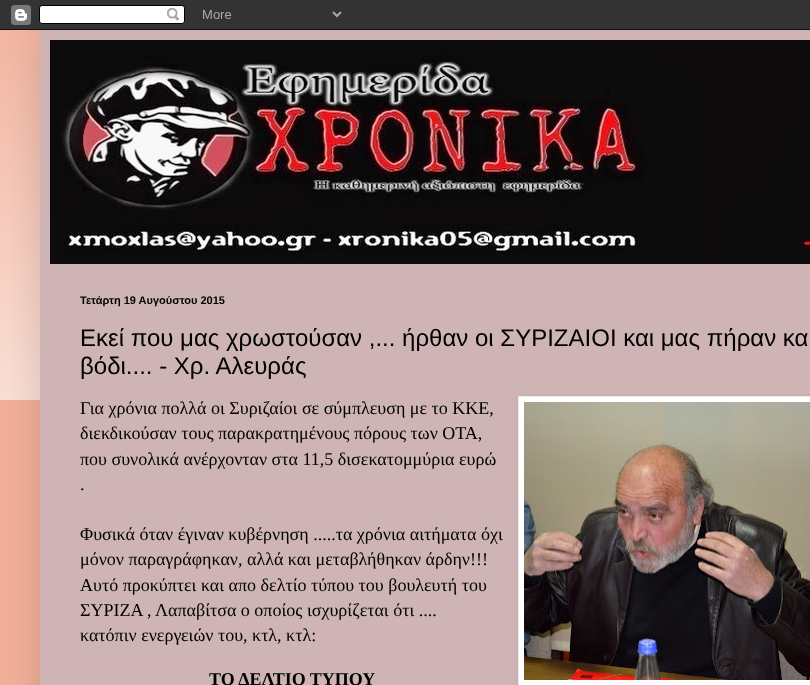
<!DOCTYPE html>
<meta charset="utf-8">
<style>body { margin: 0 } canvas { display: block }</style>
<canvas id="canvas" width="810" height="685"></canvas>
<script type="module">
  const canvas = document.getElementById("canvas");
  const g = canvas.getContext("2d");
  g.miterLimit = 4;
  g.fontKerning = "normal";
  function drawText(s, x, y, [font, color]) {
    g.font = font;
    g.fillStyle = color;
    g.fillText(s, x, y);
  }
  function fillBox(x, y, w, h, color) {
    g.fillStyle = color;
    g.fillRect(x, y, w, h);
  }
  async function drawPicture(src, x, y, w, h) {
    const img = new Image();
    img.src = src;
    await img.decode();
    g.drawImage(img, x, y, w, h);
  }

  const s1 = ["bold 11px Liberation Sans", "#000000"];
  const s2 = ["24px Liberation Sans", "#000000"];
  const s3 = ["18px Liberation Serif", "#000000"];
  const s4 = ["bold 18px Liberation Serif", "#000000"];

  fillBox(0, 0, 810, 685, "#F3B099");
  await drawPicture("pic2.png", 0, 30, 40, 370);
  g.fillStyle = "rgba(0, 0, 0, 0.15)";
  g.filter = "blur(20px)";
  g.beginPath();
  g.rect(40, 30, 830, 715);
  g.fill();
  g.filter = "none";
  await drawPicture("pic1.png", 0, 0, 810, 30);
  fillBox(40, 30, 770, 655, "#CEB4B4");
  await drawPicture("pic3.png", 50, 40, 760, 224);
  drawText("Τετάρτη 19 Αυγούστου 2015", 80, 304, s1);
  drawText("Εκεί που μας χρωστούσαν ,... ήρθαν οι ΣΥΡΙΖΑΙΟΙ και μας πήραν κα", 80, 346, s2);
  drawText("βόδι.... - Χρ. Αλευράς", 80, 374, s2);
  drawText("Για χρόνια πολλά οι Συριζαίοι σε σύμπλευση με το ΚΚΕ,", 80, 414, s3);
  drawText("διεκδικούσαν τους παρακρατημένους πόρους των ΟΤΑ,", 80, 439, s3);
  drawText("που συνολικά ανέρχονταν στα 11,5 δισεκατομμύρια ευρώ", 80, 465, s3);
  drawText(".", 80, 490, s3);
  g.fillStyle = "rgba(0, 0, 0, 0.1)";
  g.filter = "blur(2.5px)";
  g.beginPath();
  g.rect(519, 397, 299, 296);
  g.fill();
  g.filter = "none";
  g.fillStyle = "#FFFFFF";
  g.beginPath();
  g.rect(518.5, 396.5, 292, 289);
  g.fill();
  g.strokeStyle = "#ECECEC";
  g.stroke();
  await drawPicture("pic4.png", 524, 402, 286, 278);
  drawText("Φυσικά όταν έγιναν κυβέρνηση .....τα χρόνια αιτήματα όχι", 80, 540, s3);
  drawText("μόνον παραγράφηκαν, αλλά και μεταβλήθηκαν άρδην!!!", 80, 565, s3);
  drawText("Αυτό προκύπτει και απο δελτίο τύπου του βουλευτή του", 80, 591, s3);
  drawText("ΣΥΡΙΖΑ , Λαπαβίτσα ο οποίος ισχυρίζεται ότι ....", 80, 616, s3);
  drawText("κατόπιν ενεργειών του, κτλ, κτλ:", 80, 641, s3);
  drawText("ΤΟ ΔΕΛΤΙΟ ΤΥΠΟΥ", 209, 685, s4);
</script>
